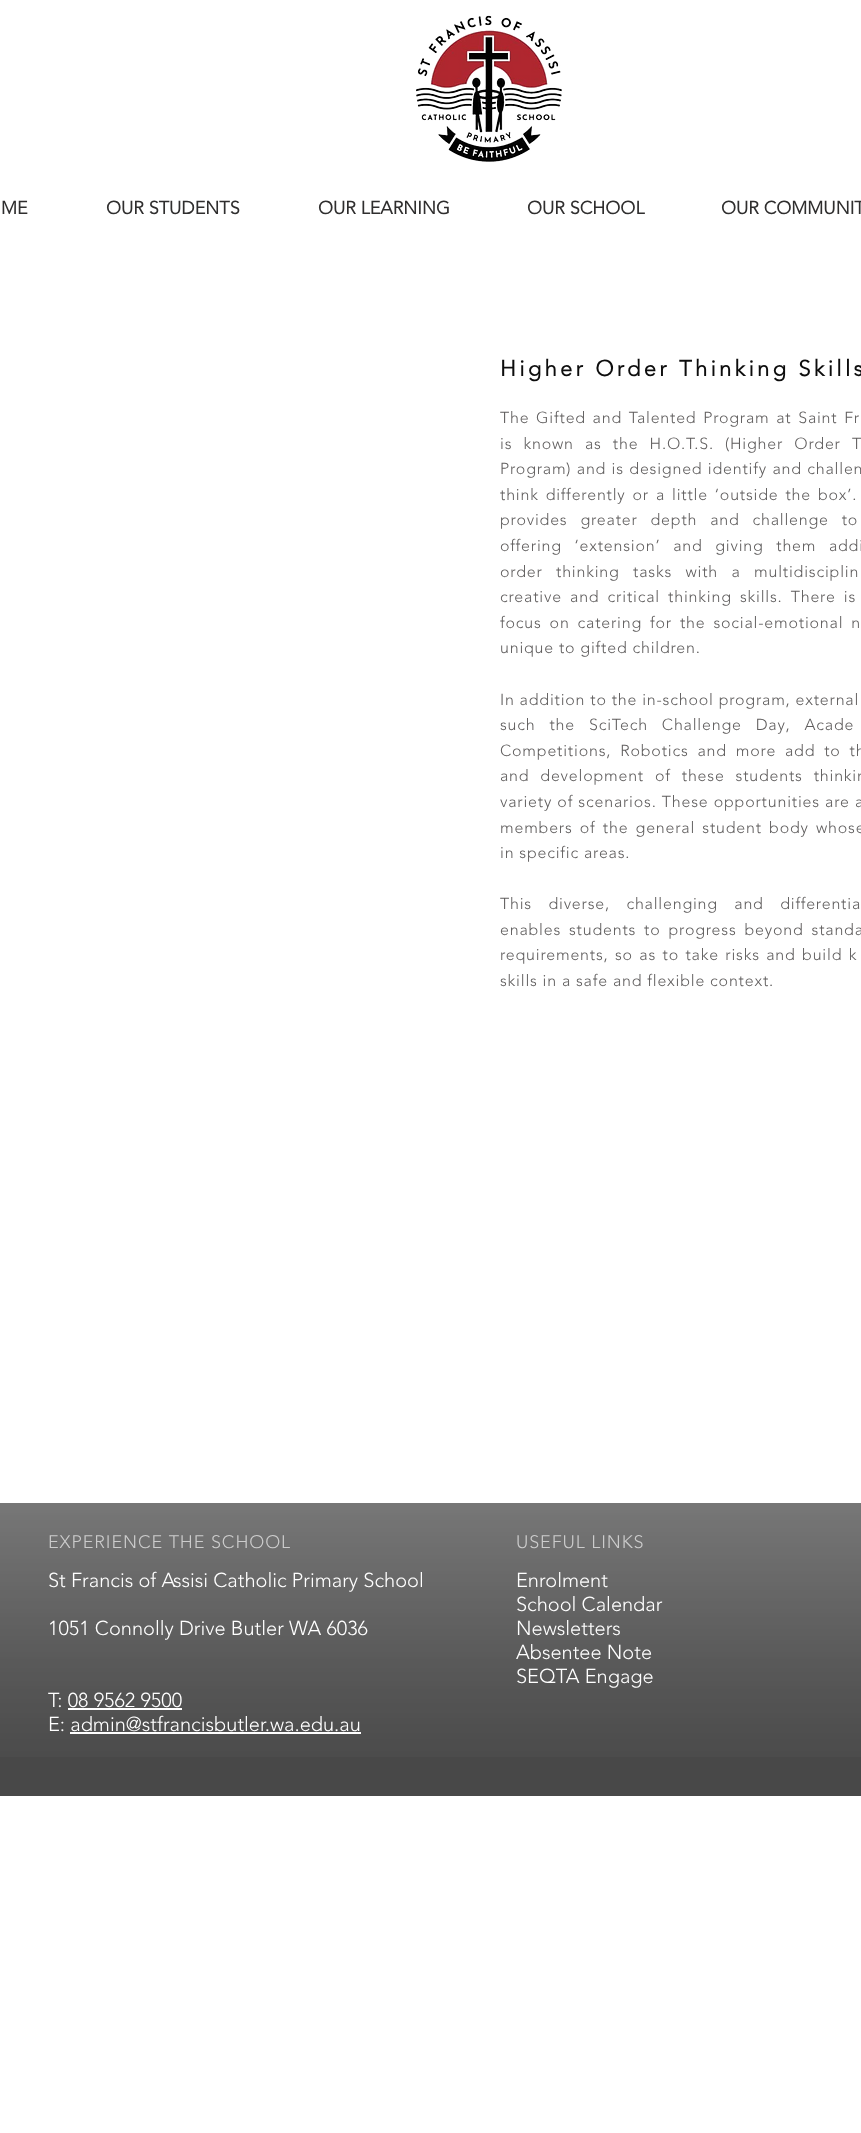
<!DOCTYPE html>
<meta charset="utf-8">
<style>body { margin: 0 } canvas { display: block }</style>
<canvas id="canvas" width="861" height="2133"></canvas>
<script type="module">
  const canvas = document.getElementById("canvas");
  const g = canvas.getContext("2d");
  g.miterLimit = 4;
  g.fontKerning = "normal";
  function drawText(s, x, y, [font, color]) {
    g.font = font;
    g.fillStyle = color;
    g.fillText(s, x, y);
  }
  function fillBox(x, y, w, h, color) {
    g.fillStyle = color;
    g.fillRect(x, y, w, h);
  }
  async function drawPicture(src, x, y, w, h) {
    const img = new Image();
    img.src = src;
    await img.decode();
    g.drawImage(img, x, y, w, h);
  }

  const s1 = ["bold 18px 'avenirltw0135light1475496'", "#2F2E2E"];
  const s2 = ["bold 22px 'avenirltw0135light1475496'", "#0D0D0D"];
  const s3 = ["300 16px 'avenirltw0135light1475496'", "#605E5E"];
  const s4 = ["300 18px 'avenirltw0135light1475496'", "#CCCCCC"];
  const s5 = ["300 20px 'avenirltw0135light1475496'", "#FFFFFF"];

  fillBox(0, 0, 861, 2133, "#FFFFFF");
  await drawPicture("pic1.png", 416, 15, 146, 147);
  drawText("ME", 1, 214, s1);
  drawText("OUR STUDENTS", 106, 214, s1);
  drawText("OUR LEARNING", 318, 214, s1);
  drawText("OUR SCHOOL", 527, 214, s1);
  drawText("OUR COMMUNIT", 721, 214, s1);
  g.letterSpacing = "3.3px";
  drawText("Higher Order Thinking Skills", 500, 376, s2);
  g.letterSpacing = "0.8px";
  g.wordSpacing = "1.75px";
  drawText("The Gifted and Talented Program at Saint Fr", 500, 423, s3);
  g.wordSpacing = "6.25px";
  drawText("is known as the H.O.T.S. (Higher Order T", 500, 449, s3);
  g.wordSpacing = "0.5px";
  drawText("Program) and is designed identify and challen", 500, 474, s3);
  g.wordSpacing = "2px";
  drawText("think differently or a little ‘outside the box’.", 500, 500, s3);
  g.wordSpacing = "8px";
  drawText("provides greater depth and challenge to", 500, 525, s3);
  g.wordSpacing = "7.75px";
  drawText("offering ‘extension’ and giving them addi", 500, 551, s3);
  g.wordSpacing = "8.5px";
  drawText("order thinking tasks with a multidisciplin", 500, 577, s3);
  g.wordSpacing = "3.25px";
  drawText("creative and critical thinking skills. There is", 500, 602, s3);
  g.wordSpacing = "3px";
  drawText("focus on catering for the social-emotional n", 500, 628, s3);
  g.wordSpacing = "0px";
  drawText("unique to gifted children.", 500, 653, s3);
  drawText("In addition to the in-school program, external", 500, 705, s3);
  g.wordSpacing = "9px";
  drawText("such the SciTech Challenge Day, Acade", 500, 730, s3);
  g.wordSpacing = "4px";
  drawText("Competitions, Robotics and more", 500, 756, s3);
  drawText("add to th", 785, 756, s3);
  g.wordSpacing = "6px";
  drawText("and development of these students thinkin", 500, 781, s3);
  g.wordSpacing = "0.25px";
  drawText("variety of scenarios. These opportunities are a", 500, 807, s3);
  g.wordSpacing = "2.25px";
  drawText("members of the general student body whose", 500, 833, s3);
  g.wordSpacing = "0px";
  drawText("in specific areas.", 500, 858, s3);
  g.wordSpacing = "11.5px";
  drawText("This diverse, challenging and differentia", 500, 909, s3);
  g.wordSpacing = "3px";
  drawText("enables students to progress beyond standa", 500, 935, s3);
  g.wordSpacing = "1.5px";
  drawText("requirements, so as to take risks and build k", 500, 960, s3);
  g.wordSpacing = "0px";
  drawText("skills in a safe and flexible context.", 500, 986, s3);
  fillBox(0, 1503, 861, 293, "#484848");
  await drawPicture("pic2.png", 0, 1503, 861, 254);
  g.letterSpacing = "0.9px";
  drawText("EXPERIENCE THE SCHOOL", 48, 1548, s4);
  drawText("USEFUL LINKS", 516, 1548, s4);
  g.letterSpacing = "0px";
  drawText("St Francis of Assisi Catholic Primary School", 48, 1587, s5);
  drawText("1051 Connolly Drive Butler WA 6036", 48, 1635, s5);
  drawText("T: 08 9562 9500", 48, 1707, s5);
  fillBox(68, 1708, 114, 2, "#FFFFFF");
  drawText("E: admin@stfrancisbutler.wa.edu.au", 48, 1731, s5);
  fillBox(70, 1732, 291, 2, "#FFFFFF");
  drawText("Enrolment", 516, 1587, s5);
  drawText("School Calendar", 516, 1611, s5);
  drawText("Newsletters", 516, 1635, s5);
  drawText("Absentee Note", 516, 1659, s5);
  drawText("SEQTA Engage", 516, 1683, s5);
</script>
